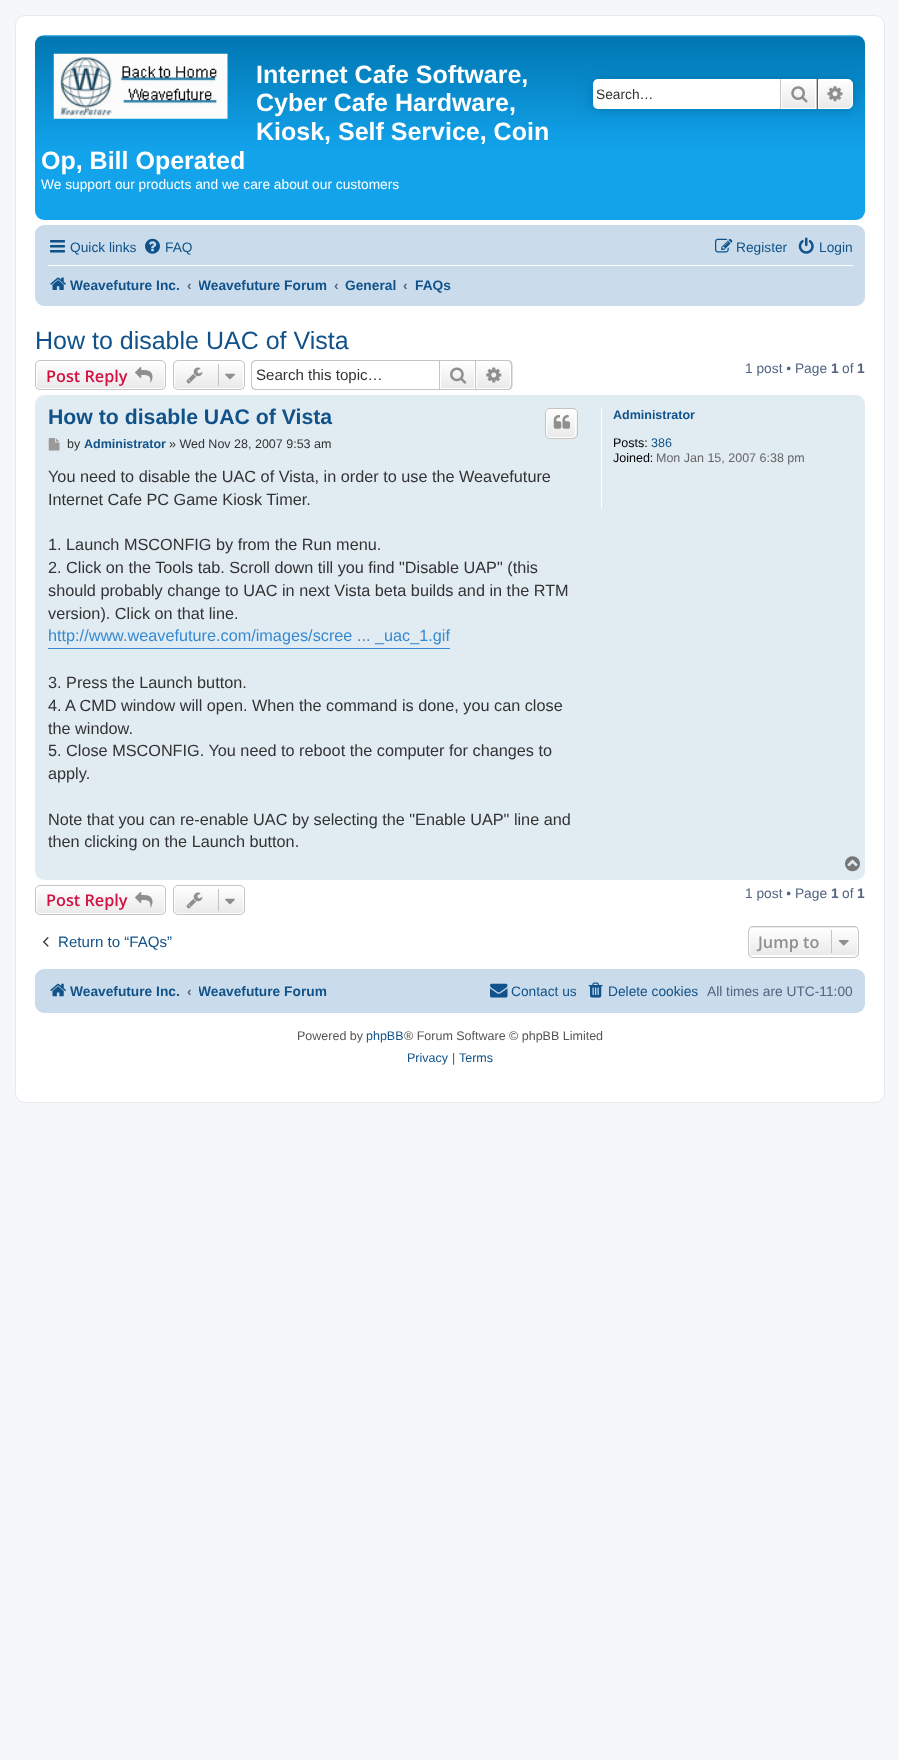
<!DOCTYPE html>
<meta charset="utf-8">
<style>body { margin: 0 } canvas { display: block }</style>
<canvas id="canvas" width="899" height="1760"></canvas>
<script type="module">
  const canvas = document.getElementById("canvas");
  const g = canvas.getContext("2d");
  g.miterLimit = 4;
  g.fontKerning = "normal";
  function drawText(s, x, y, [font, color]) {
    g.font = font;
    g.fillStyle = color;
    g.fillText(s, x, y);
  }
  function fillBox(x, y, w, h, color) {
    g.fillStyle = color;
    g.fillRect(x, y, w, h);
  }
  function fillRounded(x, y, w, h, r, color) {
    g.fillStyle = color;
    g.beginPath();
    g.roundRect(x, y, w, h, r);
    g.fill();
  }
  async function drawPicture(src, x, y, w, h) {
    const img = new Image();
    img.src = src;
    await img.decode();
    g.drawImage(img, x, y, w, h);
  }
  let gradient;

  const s1 = ["bold 25px Liberation Sans", "#FFFFFF"];
  const s2 = ["13.75px Liberation Sans", "#FFFFFF"];
  const s3 = ["13.75px Liberation Sans", "#333333"];
  const s4 = ["13.75px Liberation Sans", "#105289"];
  const s5 = ["bold 13.75px Liberation Sans", "#105289"];
  const s6 = ["bold 13.75px Liberation Sans", "#536482"];
  const s7 = ["25px Liberation Sans", "#105289"];
  const s8 = ["600 16.25px Open Sans", "#D31141"];
  const s9 = ["15.1px Liberation Sans", "#333333"];
  const s10 = ["13.75px Liberation Sans", "#536482"];
  const s11 = ["bold 21.25px Liberation Sans", "#105289"];
  const s12 = ["12.5px Liberation Sans", "#333333"];
  const s13 = ["bold 12.5px Liberation Sans", "#105289"];
  const s14 = ["16.25px Liberation Sans", "#333333"];
  const s15 = ["16.25px Liberation Sans", "#368AD2"];
  const s16 = ["12.5px Liberation Sans", "#000000"];
  const s17 = ["12.5px Liberation Sans", "#105289"];
  const s18 = ["12.5px Liberation Sans", "#666666"];
  const s19 = ["15.1px Liberation Sans", "#105289"];
  const s20 = ["600 16.25px Open Sans", "#8F8F8F"];
  const s21 = ["12.5px Liberation Sans", "#555555"];

  fillBox(0, 0, 899, 1760, "#F5F7FA");
  g.fillStyle = "#FFFFFF";
  g.beginPath();
  g.roundRect(15.5, 15.5, 869, 1087, 9.5);
  g.fill();
  g.strokeStyle = "#E6E9ED";
  g.stroke();
  gradient = g.createLinearGradient(450, 35, 450, 220);
  gradient.addColorStop(0, "#6ACEFF");
  gradient.addColorStop(0.01, "#0076B1");
  gradient.addColorStop(0.62, "#12A3EB");
  gradient.addColorStop(1, "#12A3EB");
  g.fillStyle = gradient;
  g.beginPath();
  g.roundRect(35, 35, 830, 185, 9);
  g.fill();
  await drawPicture("pic1.png", 53, 53, 175, 66);
  drawText("Internet Cafe Software,", 256, 83, s1);
  drawText("Cyber Cafe Hardware,", 256, 111, s1);
  drawText("Kiosk, Self Service, Coin", 256, 140, s1);
  drawText("Op, Bill Operated", 41, 169, s1);
  drawText("We support our products and we care about our customers", 41, 189, s2);
  g.fillStyle = "#0075B0";
  g.filter = "blur(6px)";
  g.beginPath();
  g.roundRect(593, 79, 260, 30, 5);
  g.fill();
  g.filter = "none";
  g.fillStyle = "#FFFFFF";
  g.beginPath();
  g.roundRect(593, 79, 187, 30, [5, 0, 0, 5]);
  g.fill();
  drawText("Search…", 596, 99, s3);
  gradient = g.createLinearGradient(799, 79, 799, 109);
  gradient.addColorStop(0, "#FFFFFF");
  gradient.addColorStop(1, "#E9E9E9");
  g.fillStyle = gradient;
  g.fillRect(782, 80, 33, 28);
  g.strokeStyle = "#FFFFFF";
  g.strokeRect(781.5, 79.5, 34, 29);
  fillBox(816, 79, 1, 30, "#C7C3BF");
  fillBox(780, 79, 1, 30, "#C7C3BF");
  await drawPicture("pic2.png", 791, 86, 17, 17);
  gradient = g.createLinearGradient(835, 79, 835, 109);
  gradient.addColorStop(0, "#FFFFFF");
  gradient.addColorStop(1, "#E9E9E9");
  g.fillStyle = gradient;
  g.beginPath();
  g.roundRect(818.5, 79.5, 34, 29, [0, 4.5, 4.5, 0]);
  g.fill();
  g.stroke();
  await drawPicture("pic3.png", 827, 86, 16, 16);
  fillRounded(35, 225, 830, 81, 9, "#CADCEB");
  await drawPicture("pic4.png", 50, 240, 15, 13);
  drawText("Quick links", 70, 252, s4);
  await drawPicture("pic5.png", 145, 238, 15, 16);
  drawText("FAQ", 165, 252, s4);
  await drawPicture("pic6.png", 715, 238, 18, 15);
  drawText("Register", 736, 252, s4);
  await drawPicture("pic7.png", 798, 237, 16, 17);
  drawText("Login", 819, 252, s4);
  fillBox(48, 265, 805, 1, "#FFFFFF");
  await drawPicture("pic8.png", 50, 277, 16, 13);
  drawText("Weavefuture Inc.", 70, 290, s5);
  drawText("‹", 187, 290, s6);
  g.save();
  g.beginPath();
  g.rect(199, 270, 129, 30);
  g.clip();
  drawText("Weavefuture Forum", 198, 290, s5);
  g.restore();
  drawText("‹", 334, 290, s6);
  drawText("General", 345, 290, s5);
  drawText("‹", 403, 290, s6);
  drawText("FAQs", 415, 290, s5);
  drawText("How to disable UAC of Vista", 35, 349, s7);
  g.save();
  g.beginPath();
  g.roundRect(35, 360, 131, 30, 5);
  g.clip();
  gradient = g.createLinearGradient(101, 361, 101, 389);
  gradient.addColorStop(0, "#FFFFFF");
  gradient.addColorStop(1, "#E9E9E9");
  g.fillStyle = gradient;
  g.fillRect(35, 361, 131, 28);
  g.restore();
  g.beginPath();
  g.roundRect(36.5, 361.5, 128, 27, 3.5);
  g.stroke();
  g.beginPath();
  g.roundRect(35.5, 360.5, 130, 29, 4.5);
  g.strokeStyle = "#C7C3BF";
  g.stroke();
  drawText("Post Reply", 46, 382, s8);
  await drawPicture("pic9.png", 135, 367, 18, 16);
  g.save();
  g.beginPath();
  g.roundRect(173, 360, 72, 30, 5);
  g.clip();
  gradient = g.createLinearGradient(209, 361, 209, 389);
  gradient.addColorStop(0, "#FFFFFF");
  gradient.addColorStop(1, "#E9E9E9");
  g.fillStyle = gradient;
  g.fillRect(173, 361, 72, 28);
  g.restore();
  g.beginPath();
  g.roundRect(174.5, 361.5, 69, 27, 3.5);
  g.strokeStyle = "#FFFFFF";
  g.stroke();
  g.beginPath();
  g.roundRect(173.5, 360.5, 71, 29, 4.5);
  g.strokeStyle = "#C7C3BF";
  g.stroke();
  await drawPicture("pic10.png", 186, 367, 17, 17);
  fillBox(218, 364, 1, 22, "#C7C3BF");
  await drawPicture("pic11.png", 225, 373, 10, 7);
  g.beginPath();
  g.moveTo(256, 360);
  g.lineTo(439, 360);
  g.lineTo(439, 390);
  g.lineTo(256, 390);
  g.bezierCurveTo(253, 390, 251, 388, 251, 385);
  g.lineTo(251, 365);
  g.bezierCurveTo(251, 362, 253, 360, 256, 360);
  g.closePath();
  g.moveTo(256, 361);
  g.lineTo(439, 361);
  g.lineTo(439, 389);
  g.lineTo(256, 389);
  g.bezierCurveTo(254, 389, 252, 387, 252, 385);
  g.lineTo(252, 365);
  g.bezierCurveTo(252, 363, 254, 361, 256, 361);
  g.closePath();
  g.fill("evenodd");
  drawText("Search this topic…", 256, 380, s9);
  gradient = g.createLinearGradient(458, 361, 458, 389);
  gradient.addColorStop(0, "#FFFFFF");
  gradient.addColorStop(1, "#E9E9E9");
  g.fillStyle = gradient;
  g.fillRect(441, 364, 33, 24);
  g.strokeRect(439.5, 360.5, 36, 29);
  await drawPicture("pic12.png", 450, 367, 17, 17);
  gradient = g.createLinearGradient(494, 361, 494, 389);
  gradient.addColorStop(0, "#FFFFFF");
  gradient.addColorStop(1, "#E9E9E9");
  g.fillStyle = gradient;
  g.beginPath();
  g.roundRect(476.5, 361.5, 34, 27, [0, 3.5, 3.5, 0]);
  g.fill();
  g.strokeStyle = "#FFFFFF";
  g.stroke();
  g.fillStyle = "#C7C3BF";
  g.beginPath();
  g.moveTo(476, 360);
  g.lineTo(507.5, 360);
  g.bezierCurveTo(510.5, 360, 512.5, 362, 512.5, 365);
  g.lineTo(512.5, 385);
  g.bezierCurveTo(512.5, 388, 510.5, 390, 507.5, 390);
  g.lineTo(476, 390);
  g.closePath();
  g.moveTo(476, 361);
  g.lineTo(507.5, 361);
  g.bezierCurveTo(509.5, 361, 511, 363, 511, 365);
  g.lineTo(511, 385);
  g.bezierCurveTo(511, 387, 509.5, 389, 507.5, 389);
  g.lineTo(476, 389);
  g.closePath();
  g.fill("evenodd");
  await drawPicture("pic13.png", 486, 367, 16, 16);
  drawText("1 post • Page", 745, 373, s10);
  drawText("1", 831, 373, s6);
  drawText("of", 842, 373, s10);
  drawText("1", 857, 373, s6);
  fillRounded(35, 395, 830, 485, 9, "#E1EBF2");
  drawText("How to disable UAC of Vista", 48, 424, s11);
  g.save();
  g.beginPath();
  g.roundRect(545, 408, 33, 31, 5);
  g.clip();
  gradient = g.createLinearGradient(561, 409, 561, 438);
  gradient.addColorStop(0, "#FFFFFF");
  gradient.addColorStop(1, "#E9E9E9");
  g.fillStyle = gradient;
  g.fillRect(545, 409, 33, 29);
  g.restore();
  g.beginPath();
  g.roundRect(546.5, 409.5, 29, 28, 3.5);
  g.stroke();
  g.beginPath();
  g.roundRect(545.5, 408.5, 32, 30, 4.5);
  g.strokeStyle = "#C7C3BF";
  g.stroke();
  await drawPicture("pic14.png", 553, 415, 17, 14);
  await drawPicture("pic15.png", 48, 438, 12, 13);
  drawText("by", 67, 448, s12);
  drawText("Administrator", 84, 448, s13);
  drawText("» Wed Nov 28, 2007 9:53 am", 169, 448, s12);
  drawText("You need to disable the UAC of Vista, in order to use the Weavefuture", 48, 482, s14);
  drawText("Internet Cafe PC Game Kiosk Timer.", 48, 505, s14);
  drawText("1. Launch MSCONFIG by from the Run menu.", 48, 550, s14);
  drawText("2. Click on the Tools tab. Scroll down till you find \"Disable UAP\" (this", 48, 573, s14);
  drawText("should probably change to UAC in next Vista beta builds and in the RTM", 48, 596, s14);
  drawText("version). Click on that line.", 48, 619, s14);
  fillBox(48, 648, 402, 1, "#368AD2");
  drawText("http://www.weavefuture.com/images/scree ... _uac_1.gif", 48, 641, s15);
  drawText("3. Press the Launch button.", 48, 688, s14);
  drawText("4.", 48, 711, s14);
  drawText("A CMD window will open. When the command is done, you can close", 65, 711, s14);
  drawText("the window.", 48, 734, s14);
  drawText("5. Close MSCONFIG. You need to reboot the computer for changes to", 48, 756, s14);
  drawText("apply.", 48, 779, s14);
  drawText("Note that you can re-enable UAC by selecting the \"Enable UAP\" line and", 48, 825, s14);
  drawText("then clicking on the Launch button.", 48, 847, s14);
  fillBox(601, 408, 1, 100, "#FFFFFF");
  drawText("Administrator", 613, 419, s13);
  drawText("Posts:", 613, 447, s16);
  drawText("386", 651, 447, s17);
  drawText("Joined:", 613, 462, s16);
  drawText("Mon Jan 15, 2007 6:38 pm", 656, 462, s18);
  await drawPicture("pic16.png", 845, 856, 15, 16);
  g.save();
  g.beginPath();
  g.roundRect(35, 885, 131, 30, 5);
  g.clip();
  gradient = g.createLinearGradient(101, 886, 101, 914);
  gradient.addColorStop(0, "#FFFFFF");
  gradient.addColorStop(1, "#E9E9E9");
  g.fillStyle = gradient;
  g.fillRect(35, 886, 131, 28);
  g.restore();
  g.beginPath();
  g.roundRect(36.5, 886.5, 128, 27, 3.5);
  g.strokeStyle = "#FFFFFF";
  g.stroke();
  g.beginPath();
  g.roundRect(35.5, 885.5, 130, 29, 4.5);
  g.strokeStyle = "#C7C3BF";
  g.stroke();
  drawText("Post Reply", 46, 906, s8);
  await drawPicture("pic9.png", 135, 892, 18, 16);
  g.save();
  g.beginPath();
  g.roundRect(173, 885, 72, 30, 5);
  g.clip();
  gradient = g.createLinearGradient(209, 886, 209, 914);
  gradient.addColorStop(0, "#FFFFFF");
  gradient.addColorStop(1, "#E9E9E9");
  g.fillStyle = gradient;
  g.fillRect(173, 886, 72, 28);
  g.restore();
  g.beginPath();
  g.roundRect(174.5, 886.5, 69, 27, 3.5);
  g.strokeStyle = "#FFFFFF";
  g.stroke();
  g.beginPath();
  g.roundRect(173.5, 885.5, 71, 29, 4.5);
  g.strokeStyle = "#C7C3BF";
  g.stroke();
  await drawPicture("pic10.png", 186, 892, 17, 17);
  fillBox(218, 889, 1, 22, "#C7C3BF");
  await drawPicture("pic11.png", 225, 898, 10, 7);
  drawText("1 post • Page", 745, 898, s10);
  drawText("1", 831, 898, s6);
  drawText("of", 842, 898, s10);
  drawText("1", 857, 898, s6);
  await drawPicture("pic17.png", 43, 937, 6, 10);
  drawText("Return to “FAQs”", 58, 947, s19);
  g.save();
  g.beginPath();
  g.roundRect(748, 926, 111, 32, 5);
  g.clip();
  gradient = g.createLinearGradient(803, 899, 803, 928);
  gradient.addColorStop(0, "#FFFFFF");
  gradient.addColorStop(1, "#E9E9E9");
  g.fillStyle = gradient;
  g.fillRect(748, 926, 111, 2);
  gradient = g.createLinearGradient(803, 928, 803, 956);
  gradient.addColorStop(0, "#FFFFFF");
  gradient.addColorStop(1, "#E9E9E9");
  g.fillStyle = gradient;
  g.fillRect(748, 928, 111, 28);
  g.restore();
  g.beginPath();
  g.roundRect(749.5, 928.5, 108, 27, 3.5);
  g.strokeStyle = "#FFFFFF";
  g.stroke();
  g.beginPath();
  g.roundRect(748.5, 926.5, 110, 31, 4.5);
  g.strokeStyle = "#C7C3BF";
  g.stroke();
  drawText("Jump to", 758, 948, s20);
  fillBox(831, 930, 1, 23, "#C7C3BF");
  await drawPicture("pic18.png", 838, 940, 11, 6);
  fillRounded(35, 969, 830, 44, 9, "#CADCEB");
  await drawPicture("pic19.png", 50, 983, 16, 14);
  drawText("Weavefuture Inc.", 70, 996, s5);
  drawText("‹", 187, 996, s6);
  g.save();
  g.beginPath();
  g.rect(199, 976, 129, 30);
  g.clip();
  drawText("Weavefuture Forum", 198, 996, s5);
  g.restore();
  await drawPicture("pic20.png", 490, 983, 18, 15);
  drawText("Contact us", 511, 996, s4);
  await drawPicture("pic21.png", 588, 982, 15, 16);
  drawText("Delete cookies", 608, 996, s4);
  drawText("All times are UTC-11:00", 707, 996, s10);
  drawText("Powered by", 297, 1040, s21);
  drawText("phpBB", 366, 1040, s17);
  drawText("® Forum Software © phpBB Limited", 404, 1040, s21);
  drawText("Privacy", 407, 1062, s17);
  drawText("|", 452, 1062, s21);
  drawText("Terms", 459, 1062, s17);
</script>
